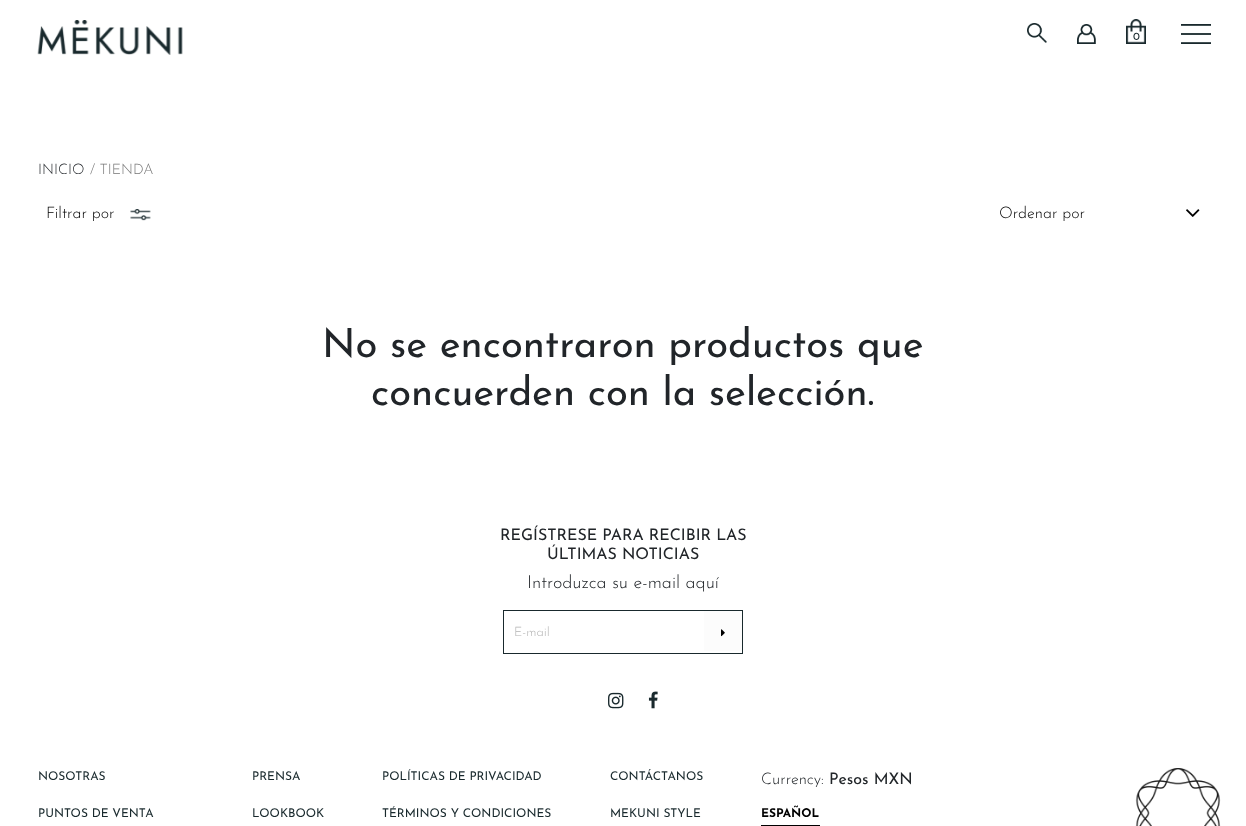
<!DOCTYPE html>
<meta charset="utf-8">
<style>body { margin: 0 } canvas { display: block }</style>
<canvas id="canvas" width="1246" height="826"></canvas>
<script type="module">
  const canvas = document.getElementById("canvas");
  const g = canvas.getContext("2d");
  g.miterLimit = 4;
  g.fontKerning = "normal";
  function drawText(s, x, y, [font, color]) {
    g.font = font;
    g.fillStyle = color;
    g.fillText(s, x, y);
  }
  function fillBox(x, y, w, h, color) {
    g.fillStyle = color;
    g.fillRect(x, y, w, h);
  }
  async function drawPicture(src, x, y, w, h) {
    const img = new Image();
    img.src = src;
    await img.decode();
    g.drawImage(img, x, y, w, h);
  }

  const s1 = ["11px Josefin Sans", "#19292D"];
  const s2 = ["300 14.5px Josefin Sans", "#212529"];
  const s3 = ["300 14.5px Josefin Sans", "#767676"];
  const s4 = ["300 16px Josefin Sans", "#000000"];
  const s5 = ["40px Josefin Sans", "#212529"];
  const s6 = ["16px Josefin Sans", "#212529"];
  const s7 = ["300 18px Josefin Sans", "#212529"];
  const s8 = ["300 13px Josefin Sans", "#B3B3B3"];
  const s9 = ["12px Josefin Sans", "#19292D"];
  const s10 = ["300 16px Josefin Sans", "#212529"];
  const s11 = ["bold 12px Josefin Sans", "#000000"];

  fillBox(0, 0, 1246, 826, "#FFFFFF");
  await drawPicture("pic1.png", 37, 20, 146, 35);
  await drawPicture("pic2.png", 1027, 23, 20, 20);
  await drawPicture("pic3.png", 1077, 24, 19, 20);
  await drawPicture("pic4.png", 1126, 19, 20, 25);
  drawText("0", 1133, 40, s1);
  await drawPicture("pic5.png", 1181, 24, 30, 20);
  drawText("INICIO", 38, 174, s2);
  drawText("/ TIENDA", 90, 174, s3);
  drawText("Filtrar por", 46, 218, s4);
  await drawPicture("pic6.png", 130, 209, 21, 12);
  drawText("Ordenar por", 999, 218, s4);
  await drawPicture("pic7.png", 1186, 209, 14, 8);
  drawText("No se encontraron productos que", 322, 357, s5);
  drawText("concuerden con la selección.", 371, 405, s5);
  drawText("REGÍSTRESE PARA RECIBIR LAS", 500, 540, s6);
  drawText("ÚLTIMAS NOTICIAS", 547, 559, s6);
  drawText("Introduzca su e-mail aquí", 527, 588, s7);
  g.strokeStyle = "#19292D";
  g.strokeRect(503.5, 610.5, 239, 43);
  drawText("E-mail", 514, 636, s8);
  fillBox(704, 611, 38, 40, "#FCFCFC");
  await drawPicture("pic8.png", 721, 629, 4, 8);
  await drawPicture("pic9.png", 608, 692, 16, 17);
  await drawPicture("pic10.png", 648, 691, 10, 18);
  drawText("NOSOTRAS", 38, 780, s9);
  drawText("PUNTOS DE VENTA", 38, 817, s9);
  drawText("PRENSA", 252, 780, s9);
  drawText("LOOKBOOK", 252, 817, s9);
  drawText("POLÍTICAS DE PRIVACIDAD", 382, 780, s9);
  drawText("TÉRMINOS Y CONDICIONES", 382, 817, s9);
  drawText("CONTÁCTANOS", 610, 780, s9);
  drawText("MEKUNI STYLE", 610, 817, s9);
  drawText("Currency:", 761, 784, s10);
  drawText("Pesos MXN", 829, 784, s6);
  fillBox(761, 825, 59, 1, "#000000");
  drawText("ESPAÑOL", 761, 817, s11);
  await drawPicture("pic11.png", 1135, 768, 86, 58);
</script>
